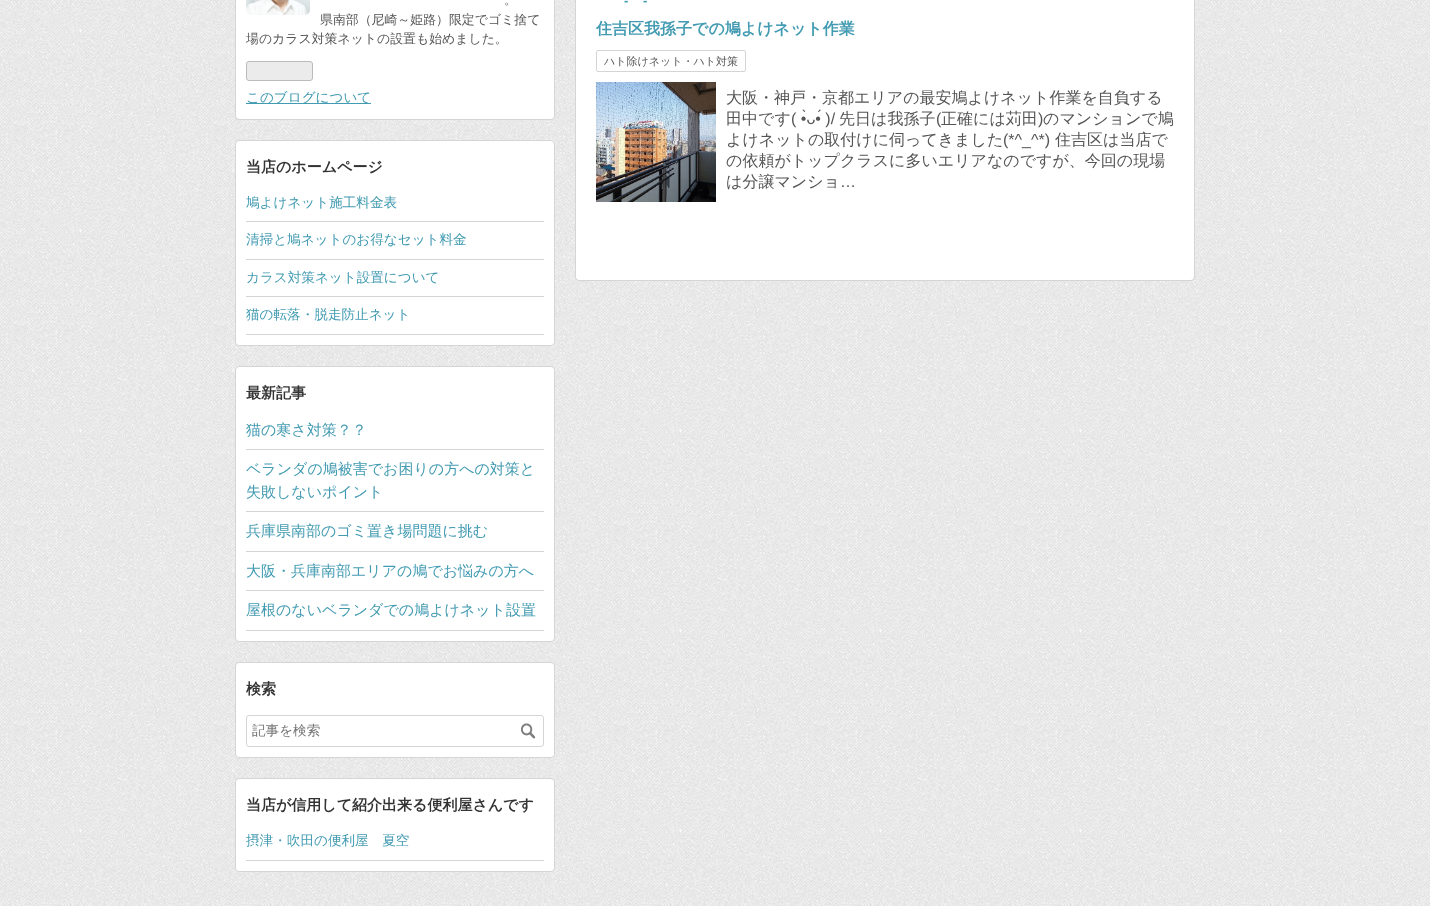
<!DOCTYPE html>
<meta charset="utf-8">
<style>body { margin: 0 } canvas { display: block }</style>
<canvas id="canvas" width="1430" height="906"></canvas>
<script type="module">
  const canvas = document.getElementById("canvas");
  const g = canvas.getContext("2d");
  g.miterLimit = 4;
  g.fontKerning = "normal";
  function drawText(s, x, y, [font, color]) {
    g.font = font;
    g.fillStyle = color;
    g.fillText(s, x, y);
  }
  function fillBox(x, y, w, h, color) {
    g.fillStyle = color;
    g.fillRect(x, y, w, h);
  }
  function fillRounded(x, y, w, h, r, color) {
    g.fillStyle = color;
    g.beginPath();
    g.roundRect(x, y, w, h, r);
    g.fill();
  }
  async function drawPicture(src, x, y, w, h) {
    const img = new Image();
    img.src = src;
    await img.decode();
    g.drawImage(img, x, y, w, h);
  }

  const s1 = ["500 12.9px WenQuanYi Zen Hei", "#555555"];
  const s2 = ["500 13.6px WenQuanYi Zen Hei", "#429BB2"];
  const s3 = ["bold 15px WenQuanYi Zen Hei", "#333333"];
  const s4 = ["500 15px WenQuanYi Zen Hei", "#429BB2"];
  const s5 = ["500 13.6px WenQuanYi Zen Hei", "#757575"];
  const s6 = ["bold 13px Liberation Sans", "#429BB2"];
  const s7 = ["bold 16px WenQuanYi Zen Hei", "#429BB2"];
  const s8 = ["500 11px WenQuanYi Zen Hei", "#555555"];
  const s9 = ["500 16px WenQuanYi Zen Hei", "#555555"];
  const s10 = ["16px Liberation Sans", "#555555"];

  fillBox(0, 0, 1430, 906, "#FFFFFF");
  await drawPicture("pic1.png", 0, 0, 1430, 906);
  fillRounded(236, -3, 318, 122, 3, "#FFFFFF");
  g.beginPath();
  g.roundRect(235.5, -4.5, 319, 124, 3.5);
  g.strokeStyle = "#D5D5D5";
  g.stroke();
  await drawPicture("pic2.png", 246, 0, 64, 15);
  drawText("。", 504, 4, s1);
  drawText("県南部（尼崎～姫路）限定でゴミ捨て", 320, 24, s1);
  drawText("場のカラス対策ネットの設置も始めました。", 246, 43, s1);
  g.fillStyle = "#EBEBEB";
  g.beginPath();
  g.roundRect(246.5, 61.5, 66, 19, 2.5);
  g.fill();
  g.strokeStyle = "#BBBBBB";
  g.stroke();
  fillBox(246, 103, 125, 1, "#429BB2");
  drawText("このブログについて", 246, 102, s2);
  g.fillStyle = "#FFFFFF";
  g.beginPath();
  g.roundRect(235.5, 140.5, 319, 205, 3.5);
  g.fill();
  g.strokeStyle = "#D5D5D5";
  g.stroke();
  drawText("当店のホームページ", 246, 172, s3);
  fillBox(246, 221, 298, 1, "#D5D5D5");
  drawText("鳩よけネット施工料金表", 246, 207, s2);
  fillBox(246, 259, 298, 1, "#D5D5D5");
  drawText("清掃と鳩ネットのお得なセット料金", 246, 244, s2);
  fillBox(246, 296, 298, 1, "#D5D5D5");
  drawText("カラス対策ネット設置について", 246, 282, s2);
  fillBox(246, 334, 298, 1, "#D5D5D5");
  drawText("猫の転落・脱走防止ネット", 246, 319, s2);
  g.fillStyle = "#FFFFFF";
  g.beginPath();
  g.roundRect(235.5, 366.5, 319, 275, 3.5);
  g.fill();
  g.stroke();
  drawText("最新記事", 246, 398, s3);
  fillBox(246, 449, 298, 1, "#D5D5D5");
  drawText("猫の寒さ対策？？", 246, 435, s4);
  fillBox(246, 511, 298, 1, "#D5D5D5");
  drawText("ベランダの鳩被害でお困りの方への対策と", 246, 474, s4);
  drawText("失敗しないポイント", 246, 497, s4);
  fillBox(246, 551, 298, 1, "#D5D5D5");
  drawText("兵庫県南部のゴミ置き場問題に挑む", 246, 536, s4);
  fillBox(246, 590, 298, 1, "#D5D5D5");
  drawText("大阪・兵庫南部エリアの鳩でお悩みの方へ", 246, 576, s4);
  fillBox(246, 630, 298, 1, "#D5D5D5");
  drawText("屋根のないベランダでの鳩よけネット設置", 246, 615, s4);
  g.fillStyle = "#FFFFFF";
  g.beginPath();
  g.roundRect(235.5, 662.5, 319, 95, 3.5);
  g.fill();
  g.stroke();
  drawText("検索", 246, 694, s3);
  g.beginPath();
  g.roundRect(246.5, 715.5, 297, 31, 2.5);
  g.stroke();
  drawText("記事を検索", 252, 735, s5);
  await drawPicture("pic3.png", 521, 723, 15, 16);
  g.fillStyle = "#FFFFFF";
  g.beginPath();
  g.roundRect(235.5, 778.5, 319, 93, 3.5);
  g.fill();
  g.stroke();
  drawText("当店が信用して紹介出来る便利屋さんです", 246, 810, s3);
  fillBox(246, 860, 298, 1, "#D5D5D5");
  drawText("摂津・吹田の便利屋　夏空", 246, 845, s2);
  fillRounded(576, -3, 618, 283, 3, "#FFFFFF");
  g.beginPath();
  g.roundRect(575.5, -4.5, 619, 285, 3.5);
  g.stroke();
  drawText("-", 624, 5, s6);
  drawText("-", 643, 5, s6);
  drawText("住吉区我孫子での鳩よけネット作業", 596, 34, s7);
  g.beginPath();
  g.roundRect(596.5, 50.5, 149, 21, 1.5);
  g.stroke();
  drawText("ハト除けネット・ハト対策", 604, 65, s8);
  await drawPicture("pic4.png", 596, 82, 120, 120);
  drawText("大阪・神戸・京都エリアの最安鳩よけネット作業を自負する", 726, 103, s9);
  drawText("田中です", 726, 124, s9);
  drawText("( •̀ᴗ•́ )/", 791, 124, s10);
  drawText("先日は我孫子", 839, 124, s9);
  drawText("(", 936, 124, s10);
  drawText("正確には苅田", 941, 124, s9);
  drawText(")", 1038, 124, s10);
  drawText("のマンションで鳩", 1043, 124, s9);
  drawText("よけネットの取付けに伺ってきました", 726, 145, s9);
  drawText("(*^_^*)", 1003, 145, s10);
  drawText("住吉区は当店で", 1055, 145, s9);
  drawText("の依頼がトップクラスに多いエリアなのですが、今回の現場", 726, 166, s9);
  drawText("は分譲マンショ", 726, 187, s9);
  drawText("…", 840, 187, s10);
</script>
